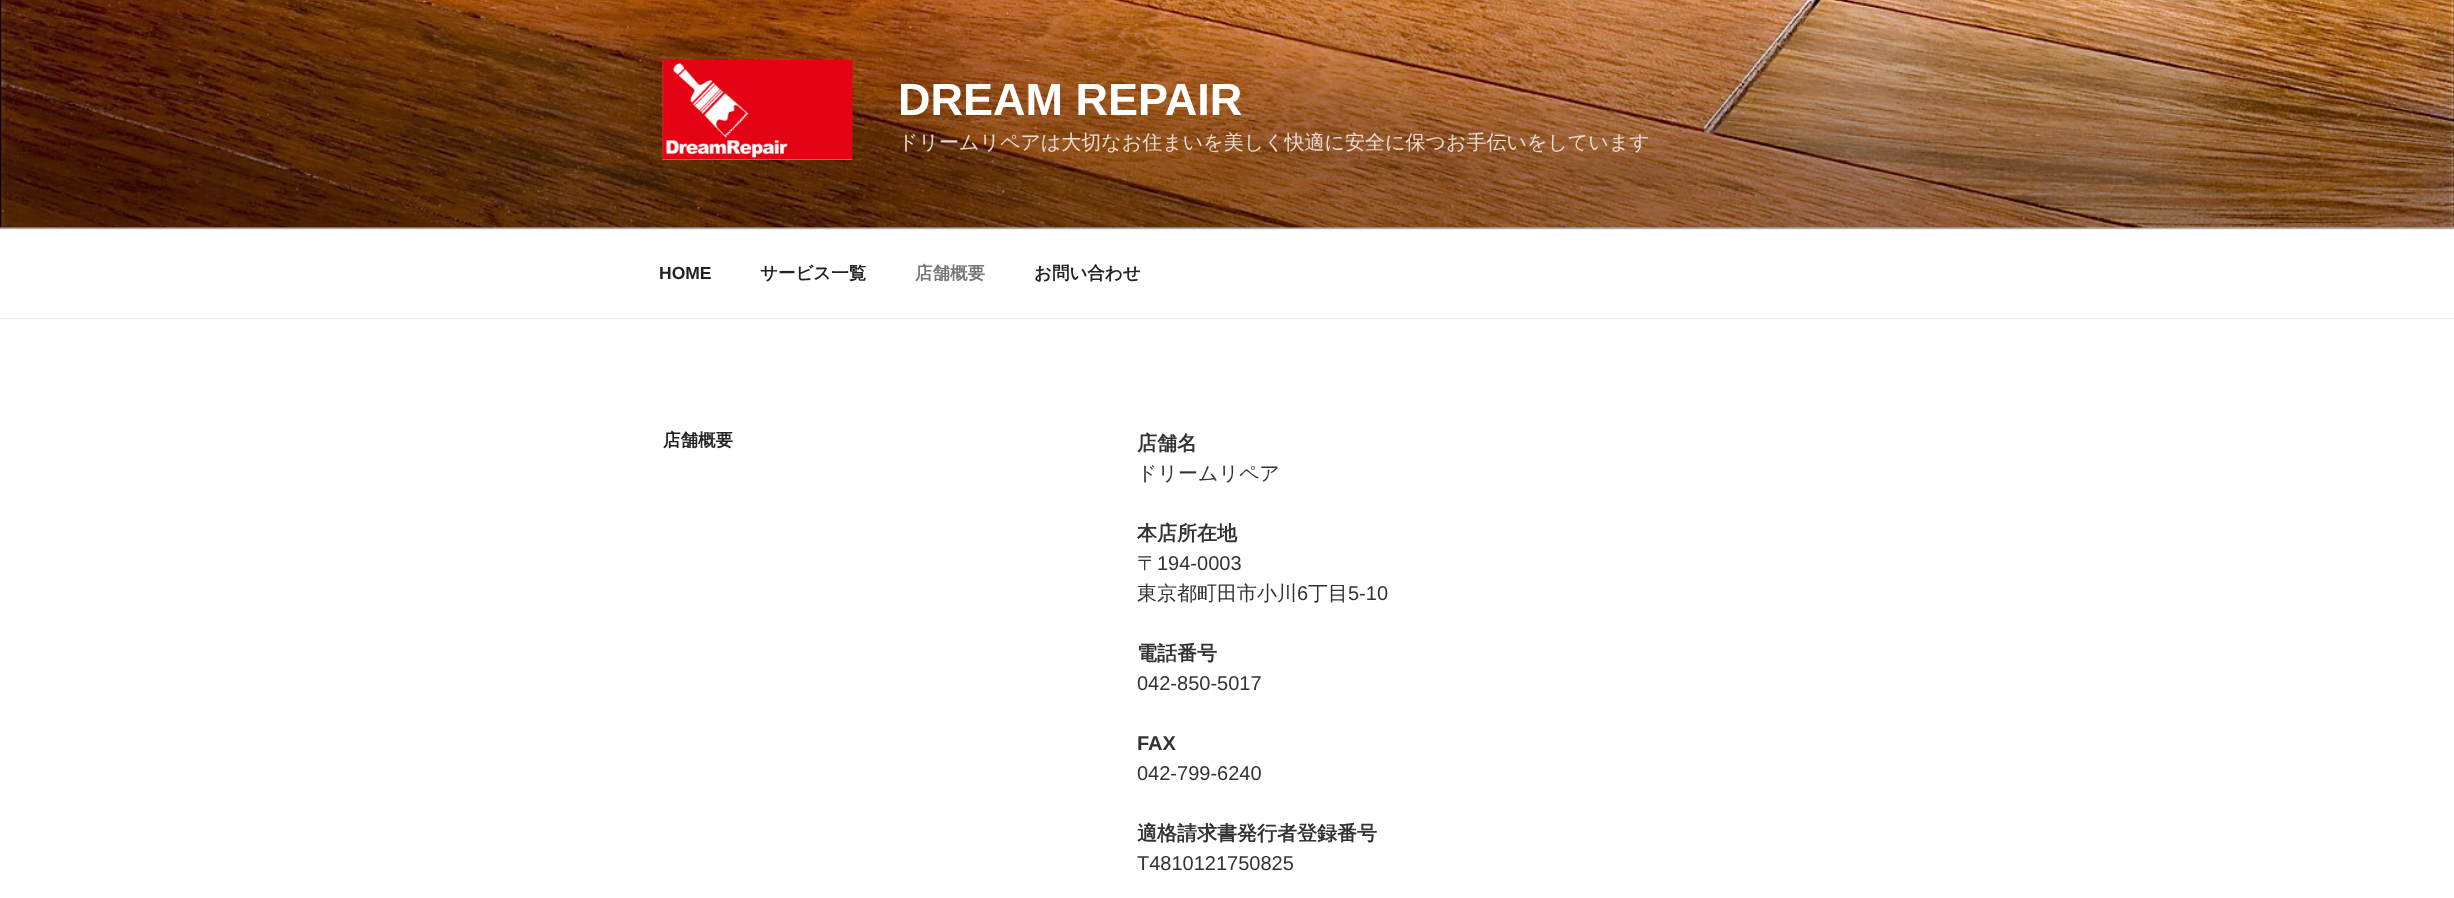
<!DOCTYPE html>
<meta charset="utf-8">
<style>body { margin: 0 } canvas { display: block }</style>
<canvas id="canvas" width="2454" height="898"></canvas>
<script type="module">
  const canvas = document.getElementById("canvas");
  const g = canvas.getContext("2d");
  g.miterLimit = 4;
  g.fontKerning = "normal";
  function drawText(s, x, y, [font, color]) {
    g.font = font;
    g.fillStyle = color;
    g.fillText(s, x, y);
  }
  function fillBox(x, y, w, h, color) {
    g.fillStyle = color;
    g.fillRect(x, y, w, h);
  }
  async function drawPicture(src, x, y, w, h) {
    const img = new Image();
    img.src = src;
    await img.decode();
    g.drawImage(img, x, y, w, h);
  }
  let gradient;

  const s1 = ["bold 45px Liberation Sans", "#FFFFFF"];
  const s2 = ["500 20px WenQuanYi Zen Hei", "#E8DCD3"];
  const s3 = ["bold 17.5px Liberation Sans", "#222222"];
  const s4 = ["bold 17.5px WenQuanYi Zen Hei", "#222222"];
  const s5 = ["bold 17.5px WenQuanYi Zen Hei", "#767676"];
  const s6 = ["bold 20px WenQuanYi Zen Hei", "#333333"];
  const s7 = ["500 20px WenQuanYi Zen Hei", "#333333"];
  const s8 = ["20px Liberation Sans", "#333333"];
  const s9 = ["bold 20px Liberation Sans", "#333333"];

  fillBox(0, 0, 2454, 898, "#FFFFFF");
  fillBox(0, 227, 2454, 2, "#FAFAFA");
  await drawPicture("pic1.png", 0, 0, 2454, 228);
  gradient = g.createLinearGradient(1228, 0, 1228, 229);
  gradient.addColorStop(0, "rgba(0, 0, 0, 0)");
  gradient.addColorStop(0.75, "rgba(0, 0, 0, 0.3)");
  gradient.addColorStop(1, "rgba(0, 0, 0, 0.3)");
  g.fillStyle = gradient;
  g.fillRect(0, 12, 2454, 217);
  await drawPicture("pic2.png", 662, 60, 191, 100);
  drawText("DREAM REPAIR", 898, 115, s1);
  drawText("ドリームリペアは大切なお住まいを美しく快適に安全に保つお手伝いをしています", 898, 149, s2);
  fillBox(0, 229, 2454, 1, "#EEEEEE");
  fillBox(0, 318, 2454, 1, "#EEEEEE");
  drawText("HOME", 659, 279, s3);
  drawText("サービス一覧", 760, 279, s4);
  drawText("店舗概要", 915, 279, s5);
  drawText("お問い合わせ", 1034, 279, s4);
  drawText("店舗概要", 663, 446, s4);
  drawText("店舗名", 1137, 450, s6);
  drawText("ドリームリペア", 1137, 480, s7);
  drawText("本店所在地", 1137, 540, s6);
  drawText("〒", 1137, 570, s7);
  drawText("194-0003", 1157, 570, s8);
  drawText("東京都町田市小川", 1137, 600, s7);
  drawText("6", 1297, 600, s8);
  drawText("丁目", 1308, 600, s7);
  drawText("5-10", 1348, 600, s8);
  drawText("電話番号", 1137, 660, s6);
  drawText("042-850-5017", 1137, 690, s8);
  drawText("FAX", 1137, 750, s9);
  drawText("042-799-6240", 1137, 780, s8);
  drawText("適格請求書発行者登録番号", 1137, 840, s6);
  drawText("T4810121750825", 1137, 870, s8);
</script>
